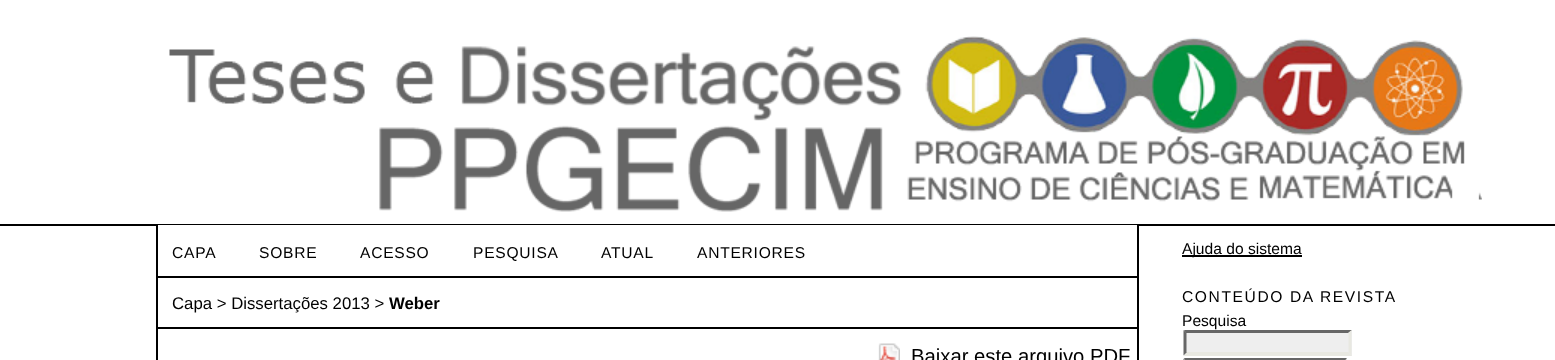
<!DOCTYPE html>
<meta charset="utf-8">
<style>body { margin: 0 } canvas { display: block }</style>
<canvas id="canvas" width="1555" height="360"></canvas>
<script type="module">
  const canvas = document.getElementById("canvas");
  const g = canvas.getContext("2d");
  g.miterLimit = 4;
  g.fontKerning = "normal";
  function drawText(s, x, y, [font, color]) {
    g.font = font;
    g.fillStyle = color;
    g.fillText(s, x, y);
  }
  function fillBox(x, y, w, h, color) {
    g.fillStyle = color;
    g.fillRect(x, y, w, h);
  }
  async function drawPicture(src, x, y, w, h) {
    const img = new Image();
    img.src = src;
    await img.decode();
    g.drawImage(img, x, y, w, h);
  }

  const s1 = ["15.6px Liberation Sans", "#000000"];
  const s2 = ["16.75px Liberation Sans", "#000000"];
  const s3 = ["bold 16.75px Liberation Sans", "#000000"];
  const s4 = ["20.25px Liberation Sans", "#000000"];

  fillBox(0, 0, 1555, 360, "#FFFFFF");
  fillBox(0, 224, 1555, 2, "#000000");
  await drawPicture("pic1.png", 169, 36, 1313, 176);
  fillBox(158, 225, 979, 1, "#FFFFFF");
  fillBox(1137, 225, 2, 135, "#000000");
  fillBox(156, 225, 2, 135, "#000000");
  fillBox(158, 276, 979, 2, "#000000");
  g.letterSpacing = "0.75px";
  drawText("CAPA", 172, 258, s1);
  drawText("SOBRE", 259, 258, s1);
  drawText("ACESSO", 360, 258, s1);
  drawText("PESQUISA", 473, 258, s1);
  drawText("ATUAL", 601, 258, s1);
  drawText("ANTERIORES", 697, 258, s1);
  fillBox(158, 327, 979, 2, "#000000");
  g.letterSpacing = "0px";
  drawText("Capa > Dissertações 2013 >", 172, 309, s2);
  drawText("Weber", 389, 309, s3);
  await drawPicture("pic2.png", 878, 343, 22, 17);
  drawText("Baixar este arquivo PDF", 911, 363, s4);
  fillBox(1182, 255, 120, 2, "#000000");
  drawText("Ajuda do sistema", 1182, 254, s1);
  g.letterSpacing = "1.6px";
  drawText("CONTEÚDO DA REVISTA", 1182, 302, s1);
  g.letterSpacing = "0px";
  drawText("Pesquisa", 1182, 326, s1);
  fillBox(1184, 330, 168, 26, "#EEEEEE");
  g.fillStyle = "#666666";
  g.beginPath();
  g.moveTo(1184, 330);
  g.lineTo(1352, 330);
  g.lineTo(1348, 333);
  g.lineTo(1186, 333);
  g.closePath();
  g.fill();
  g.fillStyle = "#E8E8E1";
  g.beginPath();
  g.moveTo(1351.5, 330);
  g.lineTo(1351.5, 355.5);
  g.lineTo(1348.5, 352.5);
  g.lineTo(1348.5, 333);
  g.closePath();
  g.fill();
  g.beginPath();
  g.moveTo(1352, 356);
  g.lineTo(1184, 356);
  g.lineTo(1186, 352);
  g.lineTo(1348, 352);
  g.closePath();
  g.fill();
  g.fillStyle = "#666666";
  g.beginPath();
  g.moveTo(1183.5, 355.5);
  g.lineTo(1183.5, 330);
  g.lineTo(1186.5, 333);
  g.lineTo(1186.5, 352.5);
  g.closePath();
  g.fill();
  fillBox(1184, 359, 163, 1, "#EEEEEE");
  g.fillStyle = "#666666";
  g.beginPath();
  g.moveTo(1184, 358);
  g.lineTo(1347, 358);
  g.lineTo(1344, 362);
  g.lineTo(1186, 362);
  g.closePath();
  g.fill();
  g.fillStyle = "#E8E8E1";
  g.beginPath();
  g.moveTo(1347, 358.5);
  g.lineTo(1347, 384);
  g.lineTo(1344, 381);
  g.lineTo(1344, 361.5);
  g.closePath();
  g.fill();
  g.fillStyle = "#666666";
  g.beginPath();
  g.moveTo(1183.5, 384);
  g.lineTo(1183.5, 358.5);
  g.lineTo(1186.5, 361.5);
  g.lineTo(1186.5, 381);
  g.closePath();
  g.fill();
</script>
